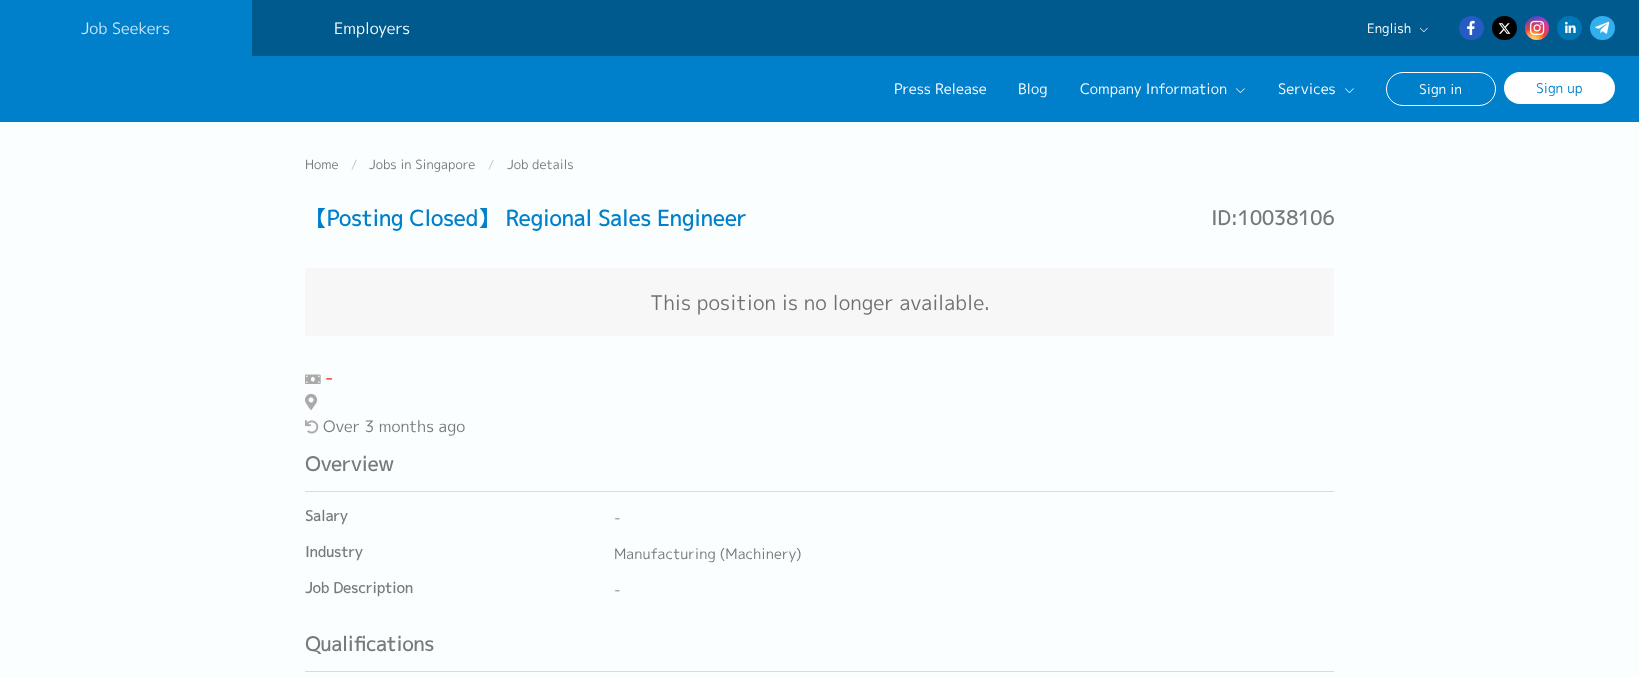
<!DOCTYPE html>
<meta charset="utf-8">
<style>body { margin: 0 } canvas { display: block }</style>
<canvas id="canvas" width="1639" height="678"></canvas>
<script type="module">
  const canvas = document.getElementById("canvas");
  const g = canvas.getContext("2d");
  g.miterLimit = 4;
  g.fontKerning = "normal";
  function drawText(s, x, y, [font, color]) {
    g.font = font;
    g.fillStyle = color;
    g.fillText(s, x, y);
  }
  function fillBox(x, y, w, h, color) {
    g.fillStyle = color;
    g.fillRect(x, y, w, h);
  }
  function fillRounded(x, y, w, h, r, color) {
    g.fillStyle = color;
    g.beginPath();
    g.roundRect(x, y, w, h, r);
    g.fill();
  }
  async function drawPicture(src, x, y, w, h) {
    const img = new Image();
    img.src = src;
    await img.decode();
    g.drawImage(img, x, y, w, h);
  }
  let gradient;

  const s1 = ["15.75px 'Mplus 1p'", "#CCE6F5"];
  const s2 = ["15.75px 'Mplus 1p'", "#FFFFFF"];
  const s3 = ["13px 'Mplus 1p'", "#FFFFFF"];
  const s4 = ["14.4px 'Mplus 1p'", "#FFFFFF"];
  const s5 = ["13.5px 'Mplus 1p'", "#FFFFFF"];
  const s6 = ["13.5px 'Mplus 1p'", "#0080CB"];
  const s7 = ["12.75px 'Mplus 1p'", "#787A7A"];
  const s8 = ["12.75px 'Mplus 1p'", "#C6C6C6"];
  const s9 = ["bold 21.4px 'Mplus 1p'", "#0080CB"];
  const s10 = ["bold 19.5px 'Mplus 1p'", "#787A7A"];
  const s11 = ["20.2px 'Mplus 1p'", "#707070"];
  const s12 = ["bold 17px 'Mplus 1p'", "#E74C3C"];
  const s13 = ["15.75px 'Mplus 1p'", "#787A7A"];
  const s14 = ["bold 14.4px 'Mplus 1p'", "#787A7A"];
  const s15 = ["14.4px 'Mplus 1p'", "#787A7A"];

  fillBox(0, 0, 1639, 678, "#FAFEFE");
  fillBox(0, 0, 1639, 122, "#0080CB");
  drawText("Job Seekers", 81, 34, s1);
  fillBox(252, 0, 1387, 56, "#005A8E");
  drawText("Employers", 334, 34, s2);
  drawText("English", 1367, 33, s3);
  await drawPicture("pic1.png", 1419, 27, 9, 6);
  fillRounded(1459, 16, 25, 24, 12, "#265CC1");
  await drawPicture("pic2.png", 1467, 20, 8, 15);
  fillRounded(1492, 16, 25, 24, 12, "#000000");
  await drawPicture("pic3.png", 1498, 23, 13, 11);
  gradient = g.createLinearGradient(1525, 16, 1549, 40);
  gradient.addColorStop(0.12, "#234BD7");
  gradient.addColorStop(0.58, "#C33CBE");
  g.fillStyle = gradient;
  g.beginPath();
  g.arc(1537, 28, 12, 0, Math.PI * 2);
  g.fill();
  gradient = g.createRadialGradient(1533, 41, 0, 1533, 41, 30);
  gradient.addColorStop(0, "#FFE17D");
  gradient.addColorStop(0.1, "#FFCD69");
  gradient.addColorStop(0.28, "#FA9137");
  gradient.addColorStop(0.42, "#EB4141");
  gradient.addColorStop(0.82, "rgba(235, 65, 65, 0)");
  g.fillStyle = gradient;
  g.beginPath();
  g.arc(1537, 28, 12, 0, Math.PI * 2);
  g.fill();
  await drawPicture("pic4.png", 1530, 20, 15, 15);
  fillRounded(1557, 16, 25, 24, 12, "#0077B5");
  await drawPicture("pic5.png", 1565, 21, 11, 12);
  fillRounded(1590, 16, 25, 24, 12, "#32AFED");
  await drawPicture("pic6.png", 1595, 21, 15, 13);
  drawText("Press Release", 894, 94, s4);
  drawText("Blog", 1018, 94, s4);
  drawText("Company Information", 1080, 94, s4);
  await drawPicture("pic7.png", 1236, 88, 9, 5);
  drawText("Services", 1278, 94, s4);
  await drawPicture("pic7.png", 1345, 88, 9, 5);
  g.beginPath();
  g.roundRect(1386.5, 72.5, 109, 33, 16.5);
  g.strokeStyle = "#FFFFFF";
  g.stroke();
  drawText("Sign in", 1419, 94, s5);
  fillRounded(1504, 72, 111, 32, 16, "#FFFFFF");
  drawText("Sign up", 1536, 93, s6);
  drawText("Home", 305, 169, s7);
  drawText("/", 351, 169, s8);
  drawText("Jobs in Singapore", 369, 169, s7);
  drawText("/", 488, 169, s8);
  drawText("Job details", 507, 169, s7);
  drawText("【Posting Closed】 Regional Sales Engineer", 305, 226, s9);
  drawText("ID:10038106", 1211, 225, s10);
  fillBox(305, 268, 1029, 68, "#F7F7F7");
  drawText("This position is no longer available.", 650, 310, s11);
  await drawPicture("pic8.png", 305, 374, 16, 10);
  drawText("-", 325, 384, s12);
  await drawPicture("pic9.png", 305, 393, 13, 17);
  await drawPicture("pic10.png", 305, 420, 14, 14);
  drawText("Over 3 months ago", 323, 432, s13);
  fillBox(305, 491, 1029, 1, "#DBDBDB");
  drawText("Overview", 305, 471, s10);
  drawText("Salary", 305, 521, s14);
  drawText("-", 614, 523, s15);
  drawText("Industry", 305, 557, s14);
  drawText("Manufacturing (Machinery)", 614, 559, s15);
  drawText("Job Description", 305, 593, s14);
  drawText("-", 614, 595, s15);
  fillBox(305, 671, 1029, 1, "#DBDBDB");
  drawText("Qualifications", 305, 651, s10);
</script>
